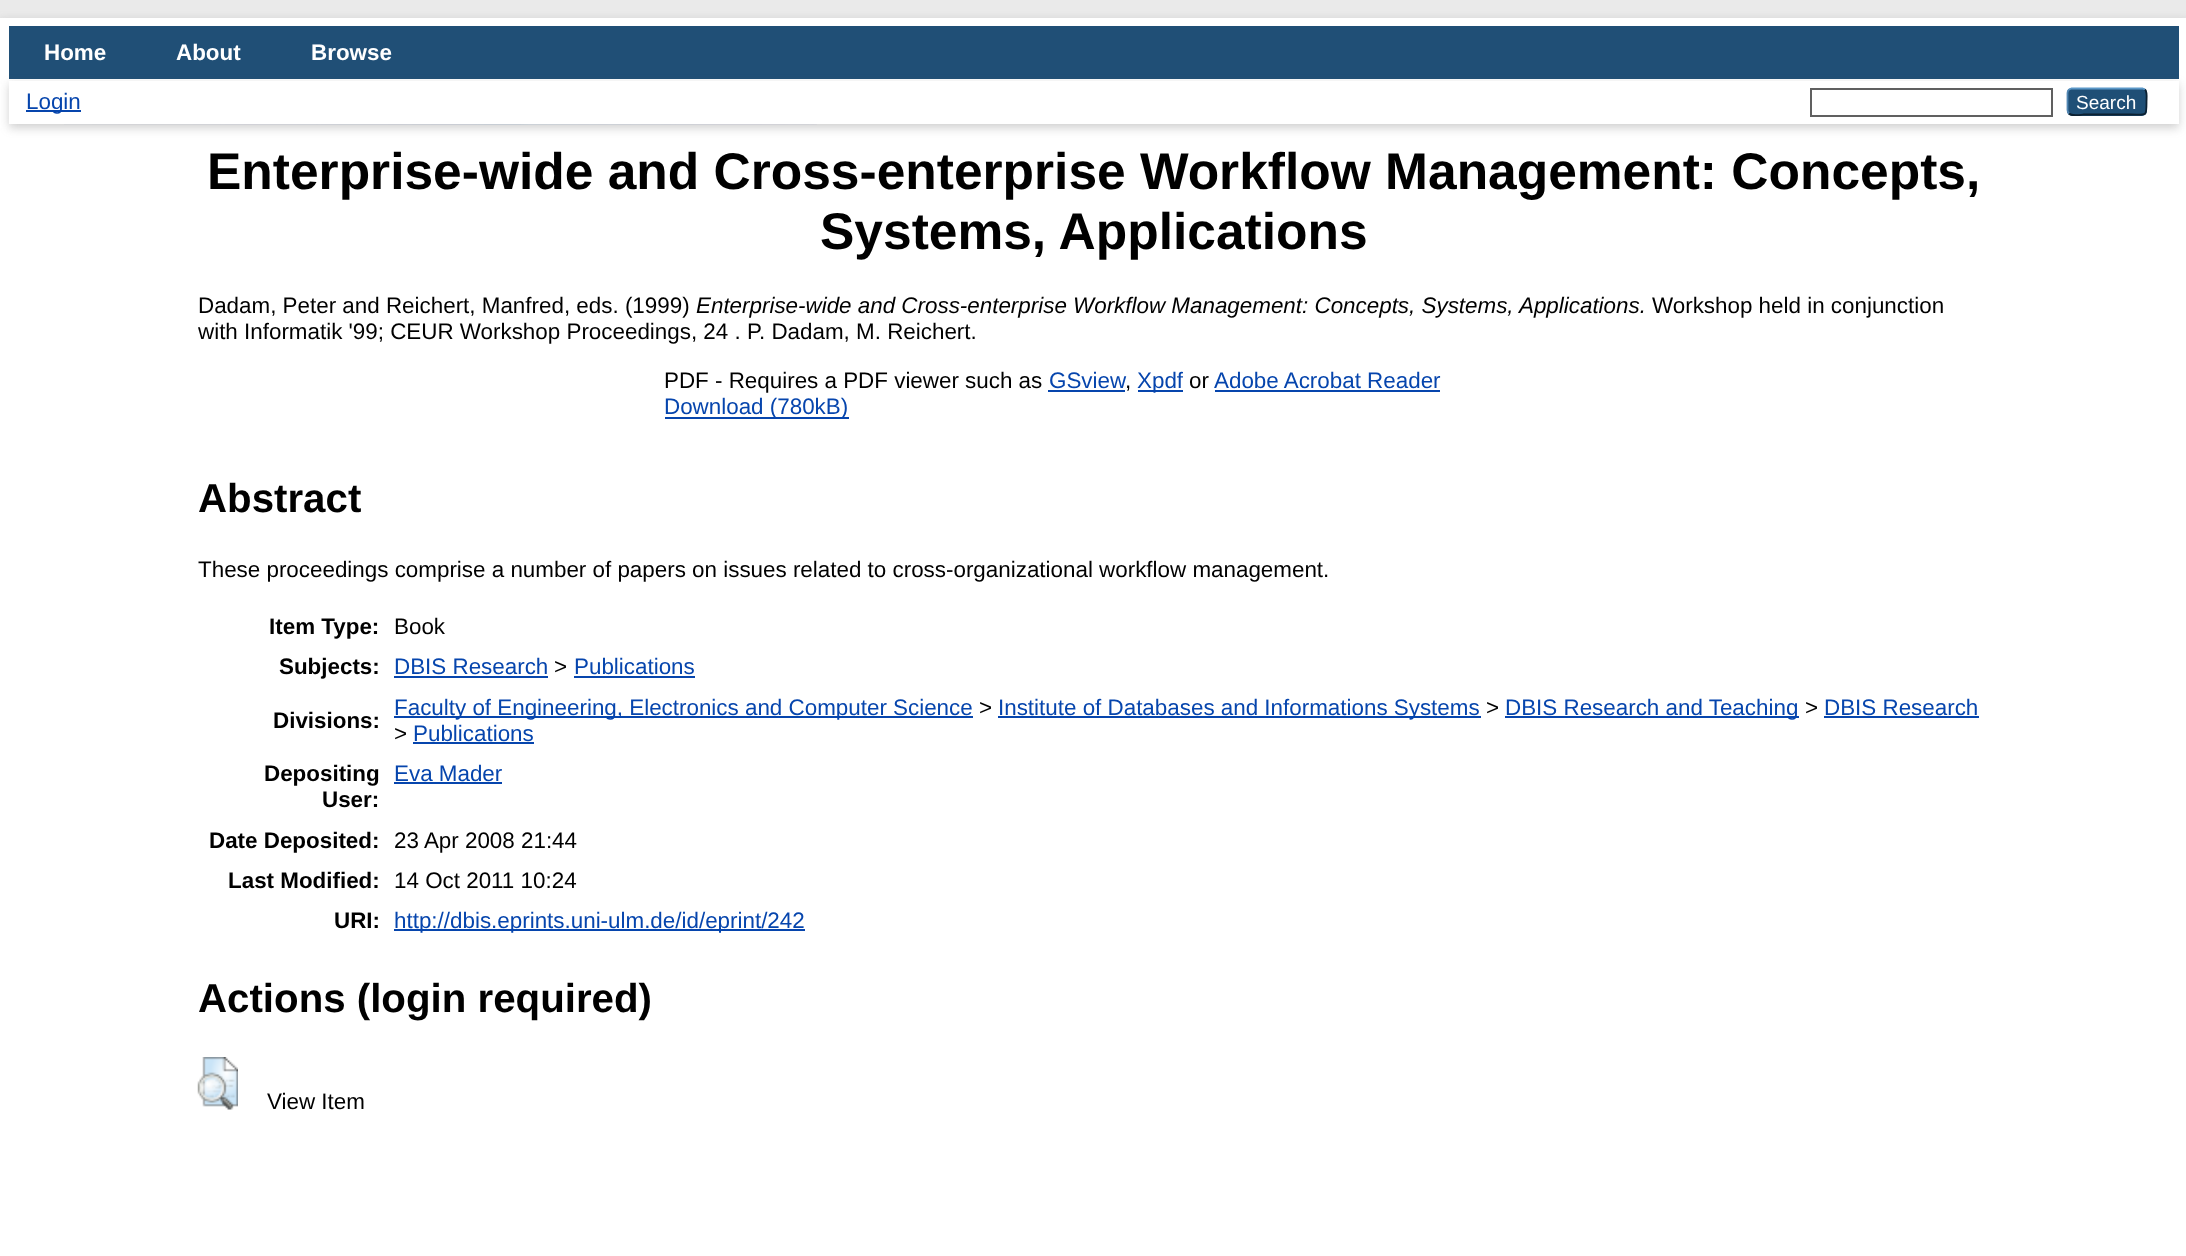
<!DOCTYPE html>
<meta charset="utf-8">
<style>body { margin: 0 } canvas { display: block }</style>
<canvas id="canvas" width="2186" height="1256"></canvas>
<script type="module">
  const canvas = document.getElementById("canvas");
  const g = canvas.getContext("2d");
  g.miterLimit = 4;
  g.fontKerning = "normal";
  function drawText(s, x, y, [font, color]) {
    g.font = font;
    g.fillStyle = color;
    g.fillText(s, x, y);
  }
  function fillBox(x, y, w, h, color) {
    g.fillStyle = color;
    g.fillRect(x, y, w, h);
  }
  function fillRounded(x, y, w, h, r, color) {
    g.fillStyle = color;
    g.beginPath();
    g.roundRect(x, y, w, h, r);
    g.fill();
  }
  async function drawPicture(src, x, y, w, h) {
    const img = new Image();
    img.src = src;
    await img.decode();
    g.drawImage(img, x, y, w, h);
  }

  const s1 = ["bold 22.4px Liberation Sans", "#FFFFFF"];
  const s2 = ["22.4px Liberation Sans", "#0645AD"];
  const s3 = ["19px Liberation Sans", "#FFFFFF"];
  const s4 = ["bold 51.5px Liberation Sans", "#000000"];
  const s5 = ["22.4px Liberation Sans", "#000000"];
  const s6 = ["italic 22.4px Liberation Sans", "#000000"];
  const s7 = ["bold 40.25px Liberation Sans", "#000000"];
  const s8 = ["bold 22.4px Liberation Sans", "#000000"];

  fillBox(0, 0, 2186, 1256, "#EAEAEA");
  g.fillStyle = "rgba(100, 100, 100, 0.3)";
  g.filter = "blur(5px)";
  g.beginPath();
  g.rect(0, 21, 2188, 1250);
  g.fill();
  g.filter = "none";
  fillBox(0, 18, 2186, 1238, "#FFFFFF");
  await drawPicture("pic1.png", 64, 124, 753, 1);
  fillBox(9, 26, 2170, 53, "#204F76");
  drawText("Home", 44, 60, s1);
  drawText("About", 176, 60, s1);
  drawText("Browse", 311, 60, s1);
  g.fillStyle = "rgba(100, 100, 100, 0.3)";
  g.filter = "blur(5px)";
  g.beginPath();
  g.rect(9, 84, 2170, 44);
  g.fill();
  g.filter = "none";
  fillBox(9, 81, 2170, 43, "#FFFFFF");
  fillBox(26, 110, 55, 2, "#0645AD");
  drawText("Login", 26, 109, s2);
  g.strokeStyle = "#606060";
  g.lineWidth = 2;
  g.strokeRect(1811, 89, 241, 27);
  fillRounded(2067, 88, 80, 28, 5, "#1F4F76");
  g.beginPath();
  g.moveTo(2069, 89.5);
  g.lineTo(2071.5, 88.5);
  g.lineTo(2142.5, 88.5);
  g.lineTo(2145, 89.5);
  g.strokeStyle = "#5B97C7";
  g.lineWidth = 1.8;
  g.stroke();
  g.beginPath();
  g.moveTo(2145, 89.5);
  g.bezierCurveTo(2147.5, 92, 2146.5, 98.5, 2146.5, 101.5);
  g.bezierCurveTo(2146.5, 117, 2147, 114.5, 2130.5, 114.5);
  g.lineTo(2083.5, 114.5);
  g.bezierCurveTo(2083, 114.5, 2072, 116.5, 2069, 113.5);
  g.strokeStyle = "#0D2131";
  g.stroke();
  g.beginPath();
  g.moveTo(2069, 113.5);
  g.bezierCurveTo(2068, 112.5, 2067.5, 111.5, 2067.5, 110);
  g.lineTo(2067.5, 93);
  g.bezierCurveTo(2067.5, 91.5, 2068, 90.5, 2069, 89.5);
  g.strokeStyle = "#5287B3";
  g.stroke();
  drawText("Search", 2076, 109, s3);
  drawText("Enterprise-wide and Cross-enterprise Workflow Management: Concepts,", 207, 189, s4);
  drawText("Systems, Applications", 820, 249, s4);
  drawText("Dadam, Peter and Reichert, Manfred, eds. (1999)", 198, 313, s5);
  drawText("Enterprise-wide and Cross-enterprise Workflow Management: Concepts, Systems, Applications.", 696, 313, s6);
  drawText("Workshop held in conjunction", 1652, 313, s5);
  drawText("with Informatik '99; CEUR Workshop Proceedings, 24 . P. Dadam, M. Reichert.", 198, 339, s5);
  drawText("PDF - Requires a PDF viewer such as", 664, 388, s5);
  drawText("GSview", 1049, 388, s2);
  fillBox(1048, 390, 77, 2, "#0645AD");
  drawText(",", 1125, 388, s5);
  fillBox(1138, 390, 45, 2, "#0645AD");
  drawText("Xpdf", 1137, 388, s2);
  drawText("or", 1189, 388, s5);
  drawText("Adobe Acrobat Reader", 1214, 388, s2);
  fillBox(1215, 390, 225, 2, "#0645AD");
  fillBox(665, 417, 184, 2, "#0645AD");
  drawText("Download (780kB)", 664, 414, s2);
  drawText("Abstract", 198, 512, s7);
  drawText("These proceedings comprise a number of papers on issues related to cross-organizational workflow management.", 198, 577, s5);
  drawText("Item Type:", 269, 634, s8);
  drawText("Book", 394, 634, s5);
  drawText("Subjects:", 279, 674, s8);
  drawText("DBIS Research", 394, 674, s2);
  fillBox(394, 676, 154, 2, "#0645AD");
  drawText(">", 554, 674, s5);
  drawText("Publications", 574, 674, s2);
  fillBox(574, 676, 121, 2, "#0645AD");
  drawText("Divisions:", 273, 728, s8);
  fillBox(394, 716, 579, 2, "#0645AD");
  drawText("Faculty of Engineering, Electronics and Computer Science", 394, 715, s2);
  drawText(">", 979, 715, s5);
  fillBox(998, 716, 483, 2, "#0645AD");
  drawText("Institute of Databases and Informations Systems", 998, 715, s2);
  drawText(">", 1486, 715, s5);
  fillBox(1505, 716, 294, 2, "#0645AD");
  drawText("DBIS Research and Teaching", 1505, 715, s2);
  drawText(">", 1805, 715, s5);
  drawText("DBIS Research", 1824, 715, s2);
  fillBox(1824, 716, 155, 2, "#0645AD");
  drawText(">", 394, 741, s5);
  drawText("Publications", 413, 741, s2);
  fillBox(413, 742, 121, 2, "#0645AD");
  drawText("Depositing", 264, 781, s8);
  drawText("User:", 322, 807, s8);
  drawText("Eva Mader", 394, 781, s2);
  fillBox(394, 782, 108, 2, "#0645AD");
  drawText("Date Deposited:", 209, 848, s8);
  drawText("23 Apr 2008 21:44", 394, 848, s5);
  drawText("Last Modified:", 228, 888, s8);
  drawText("14 Oct 2011 10:24", 394, 888, s5);
  drawText("URI:", 334, 928, s8);
  fillBox(394, 929, 411, 2, "#0645AD");
  drawText("http://dbis.eprints.uni-ulm.de/id/eprint/242", 394, 928, s2);
  drawText("Actions (login required)", 198, 1012, s7);
  await drawPicture("pic2.png", 197, 1057, 41, 53);
  drawText("View Item", 267, 1109, s5);
</script>
